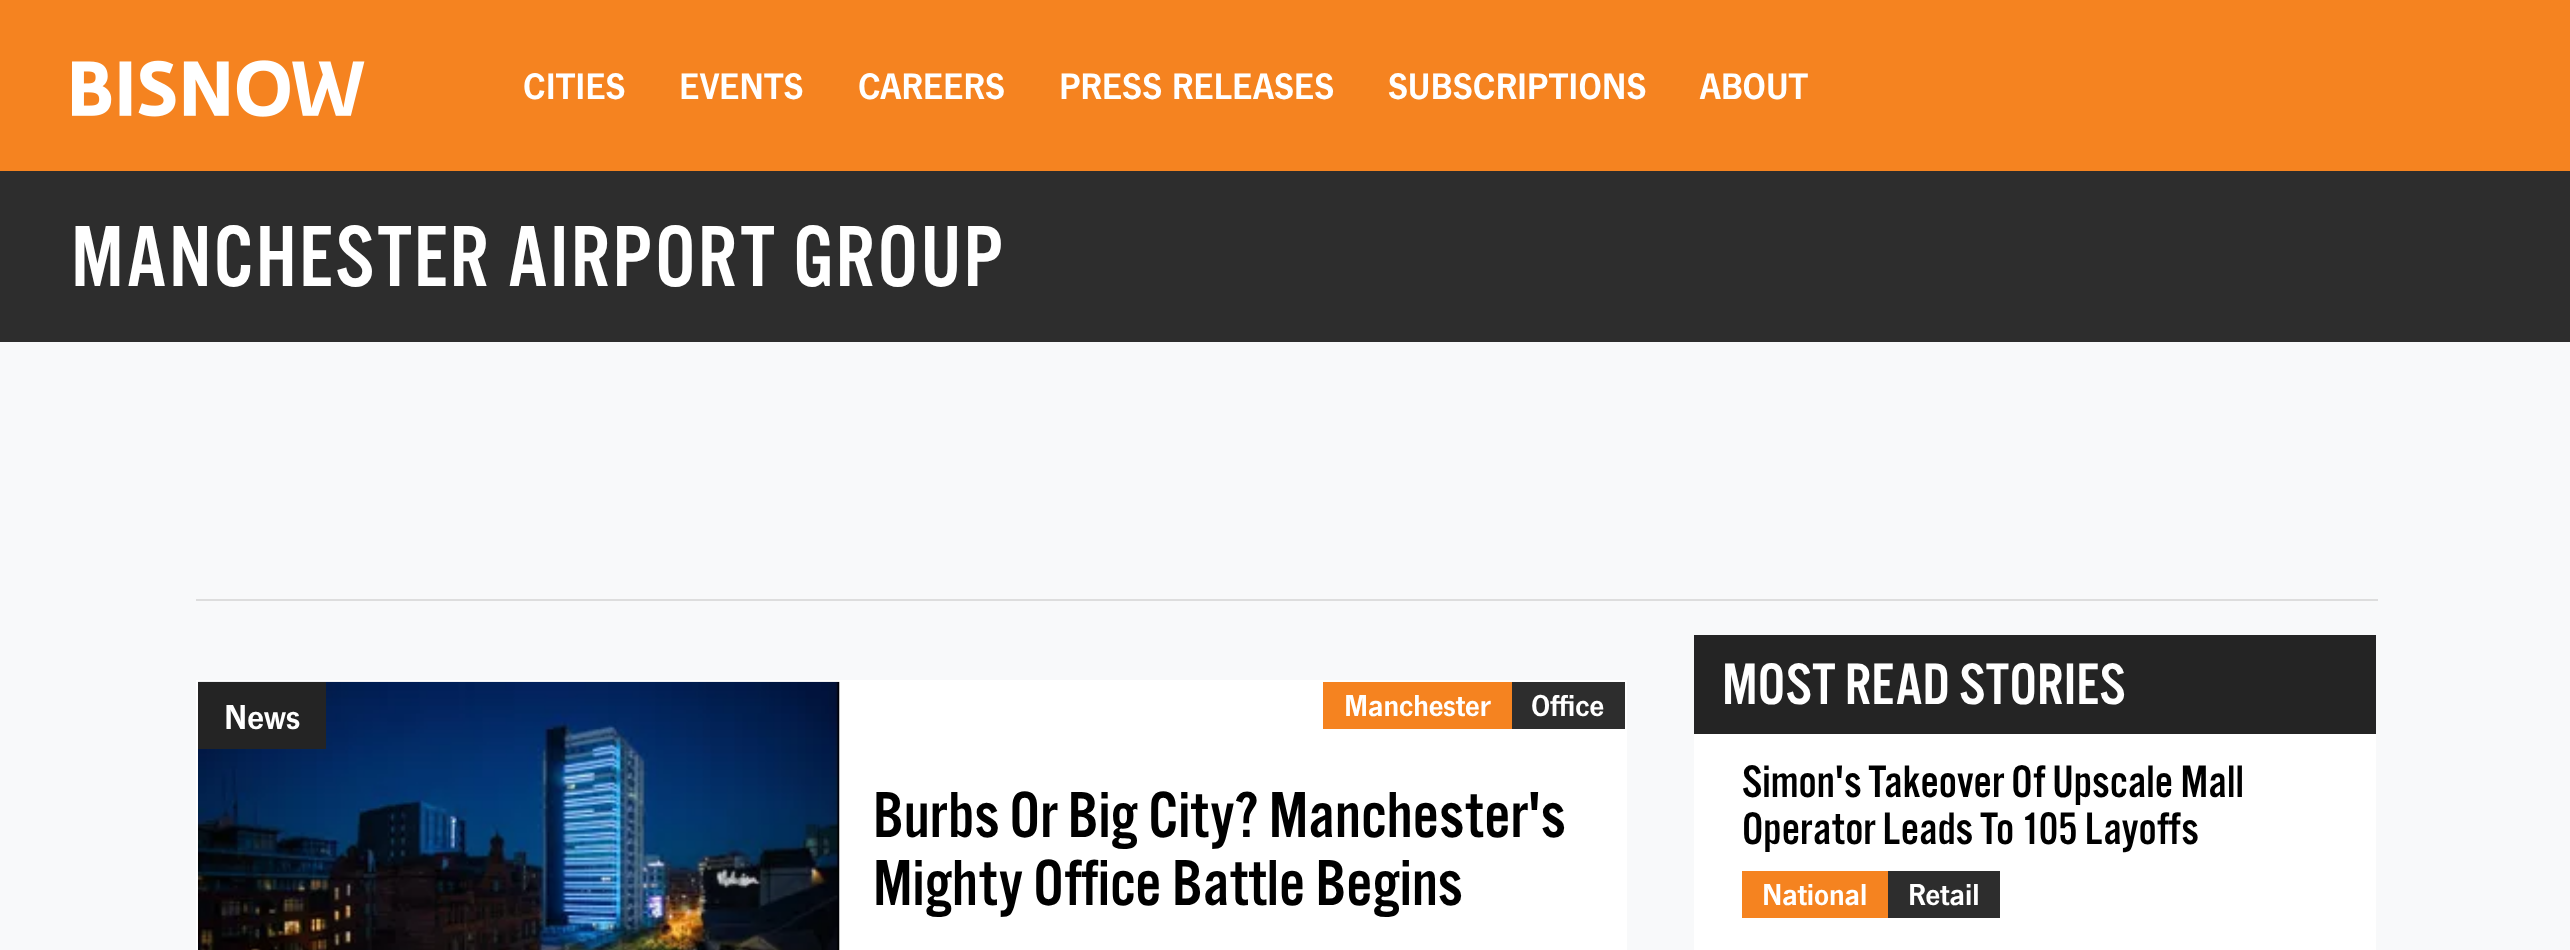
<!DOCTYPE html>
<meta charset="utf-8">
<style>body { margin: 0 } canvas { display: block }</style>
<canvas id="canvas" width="2570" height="950"></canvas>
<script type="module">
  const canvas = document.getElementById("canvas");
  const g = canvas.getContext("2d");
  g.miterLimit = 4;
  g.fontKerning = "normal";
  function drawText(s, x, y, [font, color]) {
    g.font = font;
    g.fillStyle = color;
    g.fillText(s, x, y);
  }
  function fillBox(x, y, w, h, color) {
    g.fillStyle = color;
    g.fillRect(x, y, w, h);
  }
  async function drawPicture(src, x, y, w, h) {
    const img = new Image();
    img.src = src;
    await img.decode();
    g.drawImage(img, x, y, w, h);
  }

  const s1 = ["600 38.25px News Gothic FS", "#FFFFFF"];
  const s2 = ["90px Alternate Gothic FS", "#FFFFFF"];
  const s3 = ["600 36px News Gothic FS", "#FFFFFF"];
  const s4 = ["600 31.5px News Gothic FS", "#FFFFFF"];
  const s5 = ["67.5px Alternate Gothic FS", "#000000"];
  const s6 = ["60.75px Alternate Gothic FS", "#FFFFFF"];
  const s7 = ["47.25px Alternate Gothic FS", "#000000"];

  fillBox(0, 0, 2570, 950, "#F8F9FA");
  fillBox(0, 0, 2570, 171, "#F58320");
  await drawPicture("pic1.png", 72, 60, 293, 57);
  drawText("CITIES", 523, 99, s1);
  drawText("EVENTS", 679, 99, s1);
  drawText("CAREERS", 858, 99, s1);
  drawText("PRESS RELEASES", 1059, 99, s1);
  drawText("SUBSCRIPTIONS", 1388, 99, s1);
  drawText("ABOUT", 1700, 99, s1);
  fillBox(0, 171, 2570, 171, "#2D2D2D");
  g.letterSpacing = "2.25px";
  drawText("MANCHESTER AIRPORT GROUP", 71, 286, s2);
  fillBox(196, 599, 2182, 2, "#DDDDDD");
  fillBox(196, 680, 1431, 270, "#FFFFFF");
  await drawPicture("pic2.png", 198, 681, 642, 269);
  fillBox(198, 682, 128, 67, "#242424");
  g.letterSpacing = "0px";
  drawText("News", 224, 729, s3);
  fillBox(1323, 682, 189, 47, "#F58320");
  drawText("Manchester", 1344, 716, s4);
  fillBox(1512, 682, 113, 47, "#2D2D2D");
  drawText("Office", 1531, 716, s4);
  drawText("Burbs Or Big City? Manchester's", 873, 837, s5);
  drawText("Mighty Office Battle Begins", 873, 905, s5);
  fillBox(1694, 734, 682, 216, "#FFFFFF");
  fillBox(1694, 635, 682, 99, "#242424");
  drawText("MOST READ STORIES", 1722, 704, s6);
  drawText("Simon's Takeover Of Upscale Mall", 1742, 797, s7);
  drawText("Operator Leads To 105 Layoffs", 1742, 844, s7);
  fillBox(1742, 871, 146, 47, "#F58320");
  drawText("National", 1762, 905, s4);
  fillBox(1888, 871, 112, 47, "#2D2D2D");
  drawText("Retail", 1908, 905, s4);
</script>
